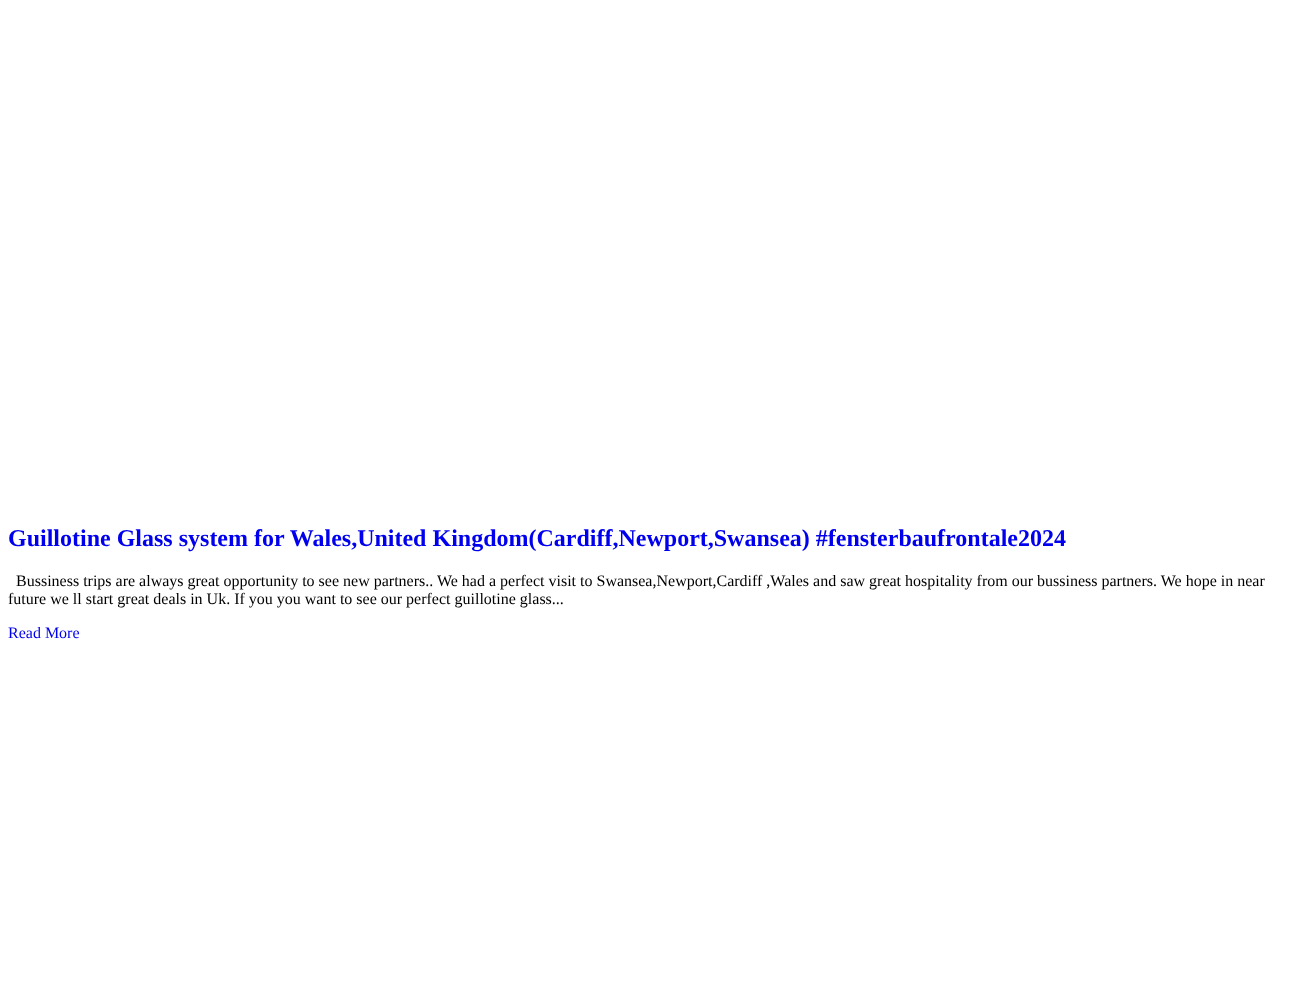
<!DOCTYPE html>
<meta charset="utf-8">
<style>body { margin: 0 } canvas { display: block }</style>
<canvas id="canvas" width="1294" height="986"></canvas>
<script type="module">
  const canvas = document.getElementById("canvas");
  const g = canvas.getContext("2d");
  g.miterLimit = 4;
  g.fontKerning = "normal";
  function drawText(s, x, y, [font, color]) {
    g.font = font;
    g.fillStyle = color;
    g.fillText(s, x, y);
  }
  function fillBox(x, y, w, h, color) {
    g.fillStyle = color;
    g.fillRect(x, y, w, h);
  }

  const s1 = ["bold 24px Liberation Serif", "#0000EE"];
  const s2 = ["16px Liberation Serif", "#000000"];
  const s3 = ["16px Liberation Serif", "#0000EE"];

  fillBox(0, 0, 1294, 986, "#FFFFFF");
  drawText("Guillotine Glass system for Wales,United Kingdom(Cardiff,Newport,Swansea) #fensterbaufrontale2024", 8, 546, s1);
  drawText("Bussiness trips are always great opportunity to see new partners.. We had a perfect visit to Swansea,Newport,Cardiff ,Wales and saw great hospitality from our bussiness partners. We hope in near", 16, 586, s2);
  drawText("future we ll start great deals in Uk. If you you want to see our perfect guillotine glass...", 8, 604, s2);
  drawText("Read More", 8, 638, s3);
</script>
